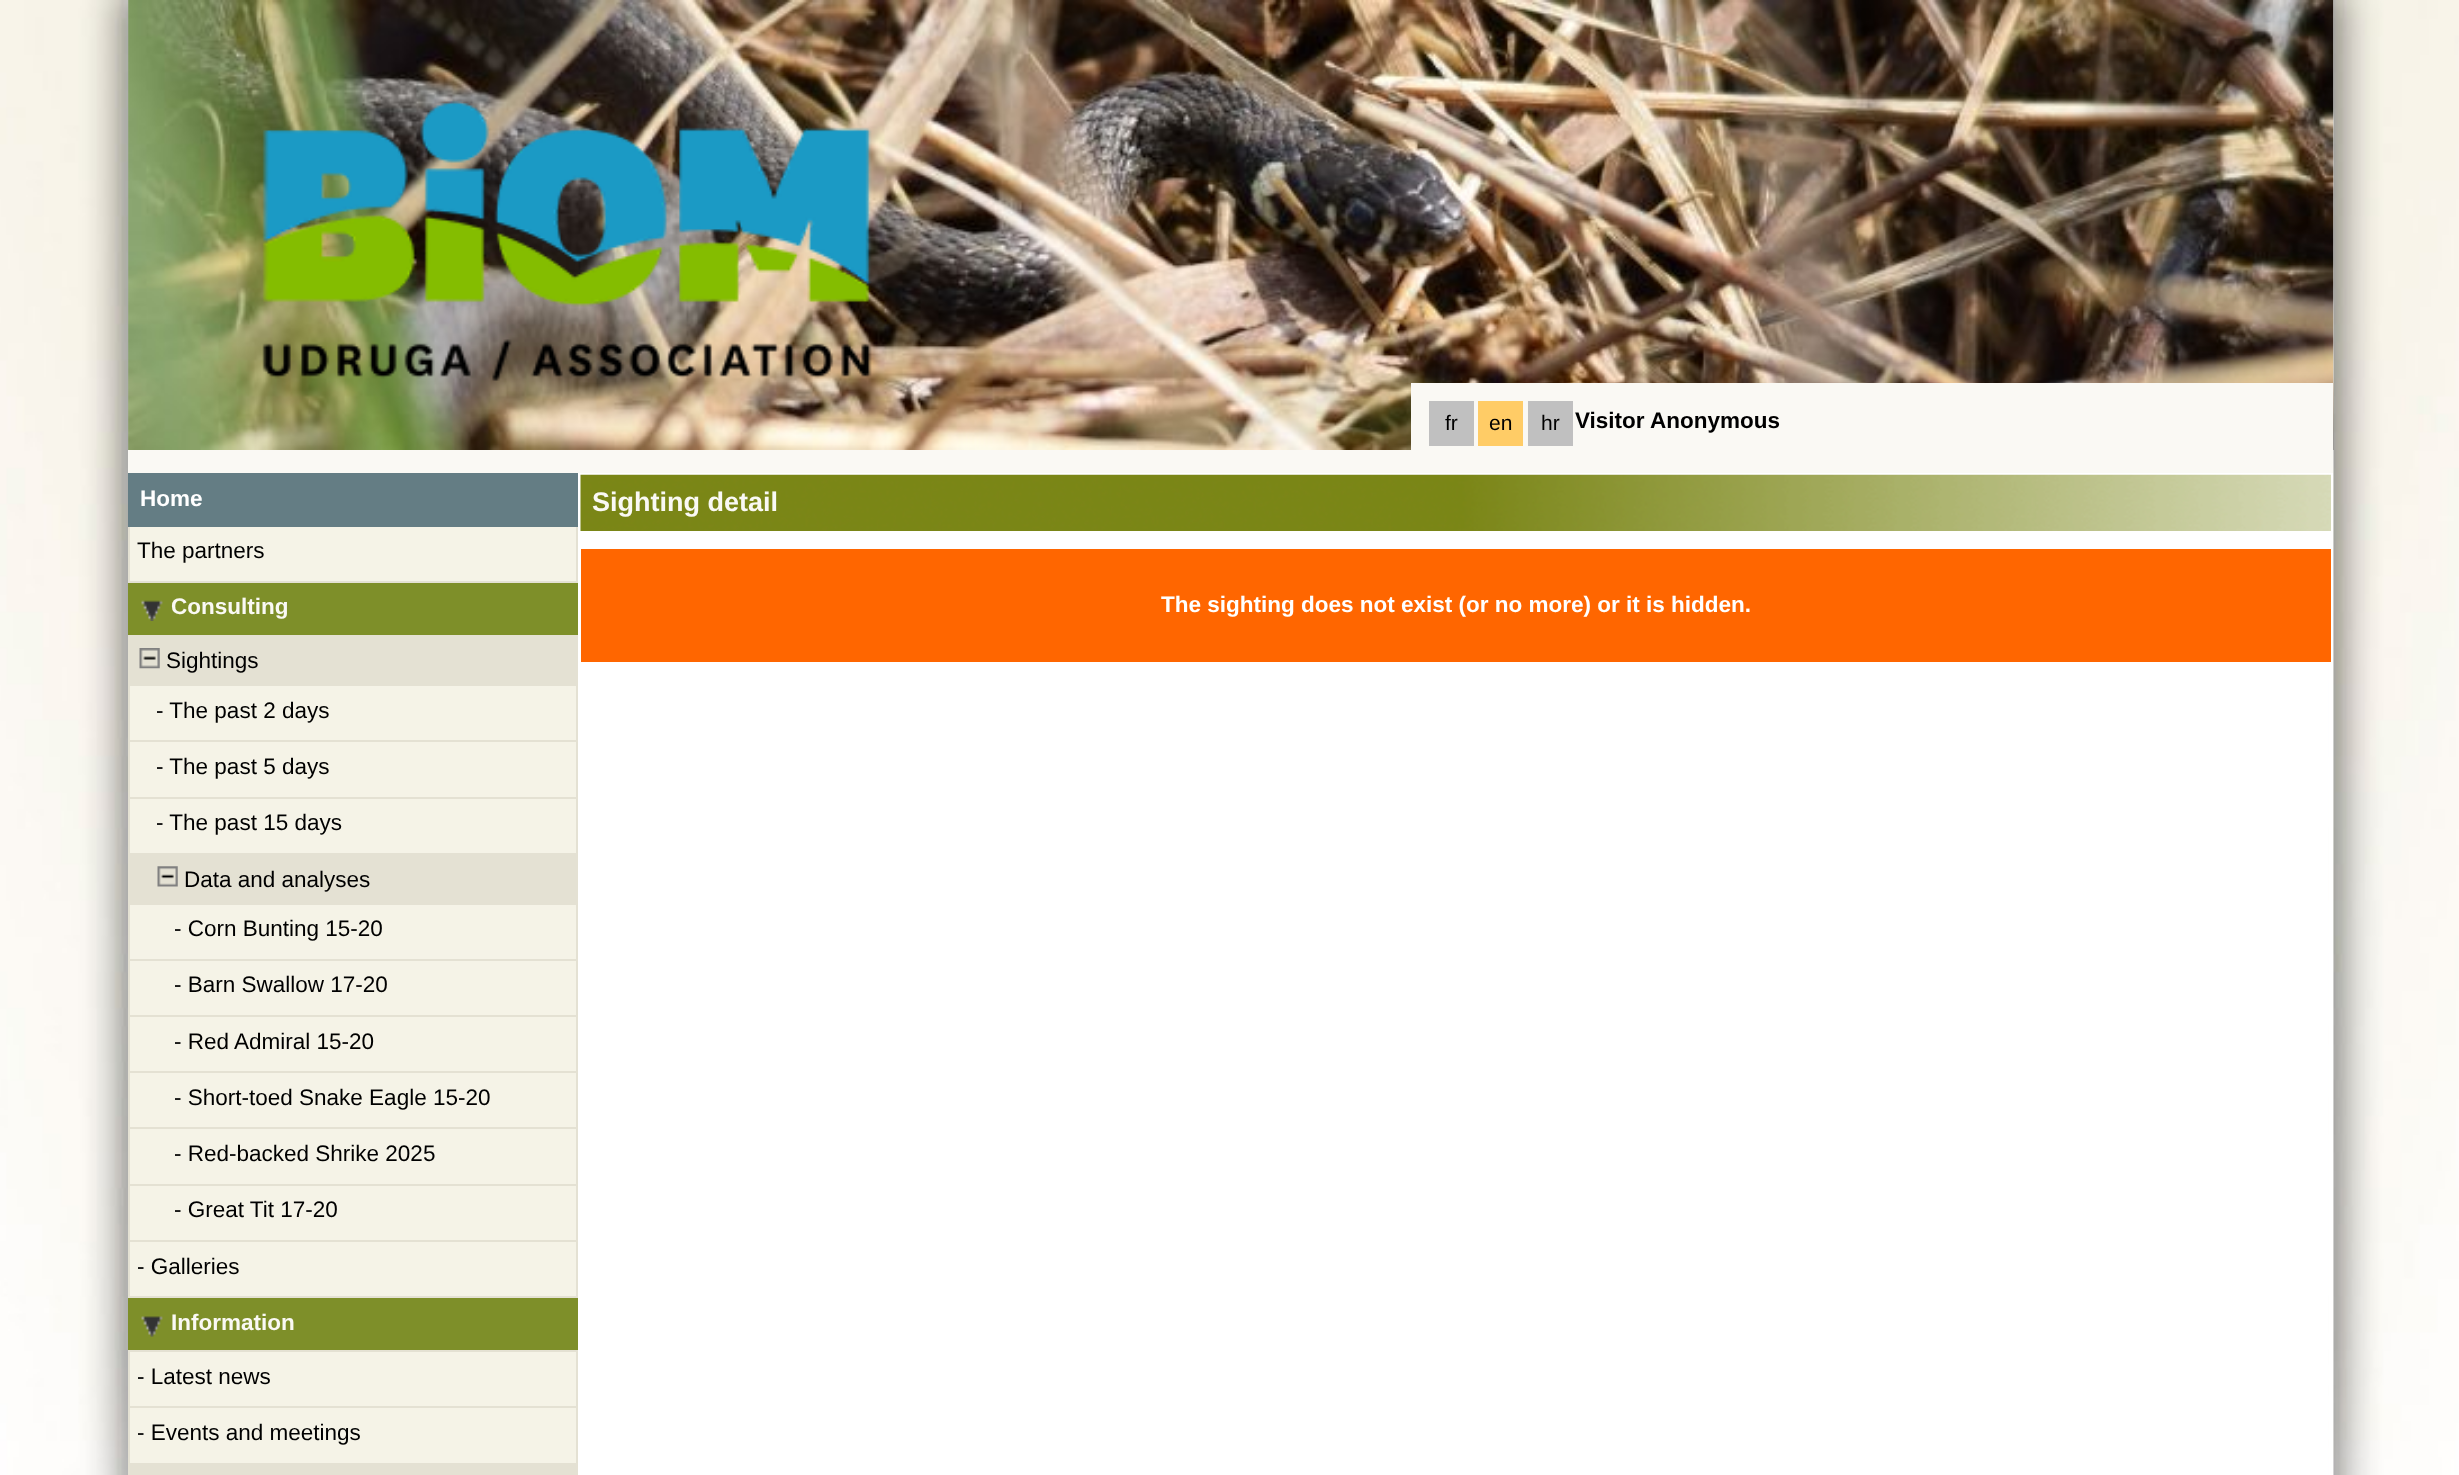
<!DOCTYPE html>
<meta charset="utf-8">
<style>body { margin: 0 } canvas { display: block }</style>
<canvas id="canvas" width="2459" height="1475"></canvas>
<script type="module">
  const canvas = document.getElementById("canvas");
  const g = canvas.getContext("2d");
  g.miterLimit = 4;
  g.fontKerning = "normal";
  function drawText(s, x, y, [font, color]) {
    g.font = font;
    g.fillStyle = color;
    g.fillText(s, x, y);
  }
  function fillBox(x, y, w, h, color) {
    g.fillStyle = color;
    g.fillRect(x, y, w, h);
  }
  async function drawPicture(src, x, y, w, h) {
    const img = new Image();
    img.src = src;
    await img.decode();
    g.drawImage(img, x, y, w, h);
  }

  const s1 = ["21px Liberation Sans", "#000000"];
  const s2 = ["bold 22.5px Liberation Sans", "#000000"];
  const s3 = ["bold 22.5px Liberation Sans", "#FFFFFF"];
  const s4 = ["22.5px Liberation Sans", "#000000"];
  const s5 = ["bold 22.5px Liberation Sans", "#FAF9F4"];
  const s6 = ["bold 27px Liberation Sans", "#FAF9F4"];

  fillBox(0, 0, 2459, 1475, "#FFFFFF");
  await drawPicture("pic1.png", 0, 0, 2459, 1475);
  await drawPicture("pic2.png", 128, 0, 2206, 450);
  await drawPicture("pic3.png", 262, 100, 610, 281);
  fillBox(1411, 383, 922, 67, "#FAF9F4");
  fillBox(1429, 401, 45, 45, "#C0C0C0");
  drawText("fr", 1445, 430, s1);
  fillBox(1478, 401, 45, 45, "#FFCC66");
  drawText("en", 1489, 430, s1);
  fillBox(1528, 401, 45, 45, "#C0C0C0");
  drawText("hr", 1541, 430, s1);
  drawText("Visitor Anonymous", 1575, 428, s2);
  fillBox(2329, 473, 4, 1002, "#FFFFFF");
  fillBox(128, 450, 2205, 23, "#FAF9F4");
  fillBox(128, 473, 450, 54, "#647D84");
  drawText("Home", 140, 506, s3);
  fillBox(130, 527, 446, 54, "#F5F3E7");
  fillBox(576, 527, 2, 56, "#E4E1D3");
  fillBox(128, 581, 450, 2, "#E4E1D3");
  fillBox(128, 527, 2, 56, "#E4E1D3");
  drawText("The partners", 137, 558, s4);
  fillBox(128, 583, 450, 52, "#7E8F29");
  fillBox(128, 635, 450, 51, "#E4E1D3");
  await drawPicture("pic4.png", 141, 600, 22, 21);
  drawText("Consulting", 171, 614, s5);
  await drawPicture("pic5.png", 139, 648, 21, 21);
  drawText("Sightings", 166, 668, s4);
  fillBox(130, 686, 446, 111, "#F5F3E7");
  fillBox(576, 686, 2, 169, "#E4E1D3");
  fillBox(128, 740, 450, 2, "#E4E1D3");
  fillBox(128, 686, 2, 57, "#E4E1D3");
  drawText("- The past 2 days", 156, 718, s4);
  fillBox(128, 797, 450, 2, "#E4E1D3");
  fillBox(128, 743, 2, 56, "#E4E1D3");
  drawText("- The past 5 days", 156, 774, s4);
  fillBox(130, 799, 446, 54, "#F5F3E7");
  fillBox(128, 853, 450, 52, "#E4E1D3");
  fillBox(128, 799, 2, 56, "#E4E1D3");
  drawText("- The past 15 days", 156, 830, s4);
  await drawPicture("pic6.png", 157, 866, 21, 21);
  drawText("Data and analyses", 184, 887, s4);
  fillBox(130, 905, 446, 54, "#F5F3E7");
  fillBox(576, 905, 2, 393, "#E4E1D3");
  fillBox(128, 959, 450, 2, "#E4E1D3");
  fillBox(128, 905, 2, 56, "#E4E1D3");
  drawText("- Corn Bunting 15-20", 174, 936, s4);
  fillBox(130, 961, 446, 54, "#F5F3E7");
  fillBox(128, 1015, 450, 2, "#E4E1D3");
  fillBox(128, 961, 2, 56, "#E4E1D3");
  drawText("- Barn Swallow 17-20", 174, 992, s4);
  fillBox(130, 1017, 446, 54, "#F5F3E7");
  fillBox(128, 1071, 450, 2, "#E4E1D3");
  fillBox(128, 1017, 2, 56, "#E4E1D3");
  drawText("- Red Admiral 15-20", 174, 1049, s4);
  fillBox(130, 1073, 446, 111, "#F5F3E7");
  fillBox(128, 1127, 450, 2, "#E4E1D3");
  fillBox(128, 1073, 2, 57, "#E4E1D3");
  drawText("- Short-toed Snake Eagle 15-20", 174, 1105, s4);
  fillBox(128, 1184, 450, 2, "#E4E1D3");
  fillBox(128, 1130, 2, 56, "#E4E1D3");
  drawText("- Red-backed Shrike 2025", 174, 1161, s4);
  fillBox(130, 1186, 446, 54, "#F5F3E7");
  fillBox(128, 1240, 450, 2, "#E4E1D3");
  fillBox(128, 1186, 2, 56, "#E4E1D3");
  drawText("- Great Tit 17-20", 174, 1217, s4);
  fillBox(130, 1242, 446, 54, "#F5F3E7");
  fillBox(128, 1296, 450, 2, "#E4E1D3");
  fillBox(128, 1242, 2, 56, "#E4E1D3");
  drawText("- Galleries", 137, 1274, s4);
  fillBox(128, 1298, 450, 52, "#7E8F29");
  fillBox(128, 1350, 450, 2, "#E4E1D3");
  await drawPicture("pic7.png", 141, 1316, 22, 21);
  drawText("Information", 171, 1330, s5);
  fillBox(130, 1352, 446, 111, "#F5F3E7");
  fillBox(576, 1352, 2, 113, "#E4E1D3");
  fillBox(128, 1406, 450, 2, "#E4E1D3");
  fillBox(128, 1352, 2, 57, "#E4E1D3");
  drawText("- Latest news", 137, 1384, s4);
  fillBox(128, 1463, 450, 12, "#E4E1D3");
  fillBox(128, 1409, 2, 56, "#E4E1D3");
  drawText("- Events and meetings", 137, 1440, s4);
  await drawPicture("pic8.png", 580, 474, 1751, 57);
  drawText("Sighting detail", 592, 511, s6);
  fillBox(581, 549, 1750, 113, "#FF6600");
  drawText("The sighting does not exist (or no more) or it is hidden.", 1161, 612, s3);
</script>
